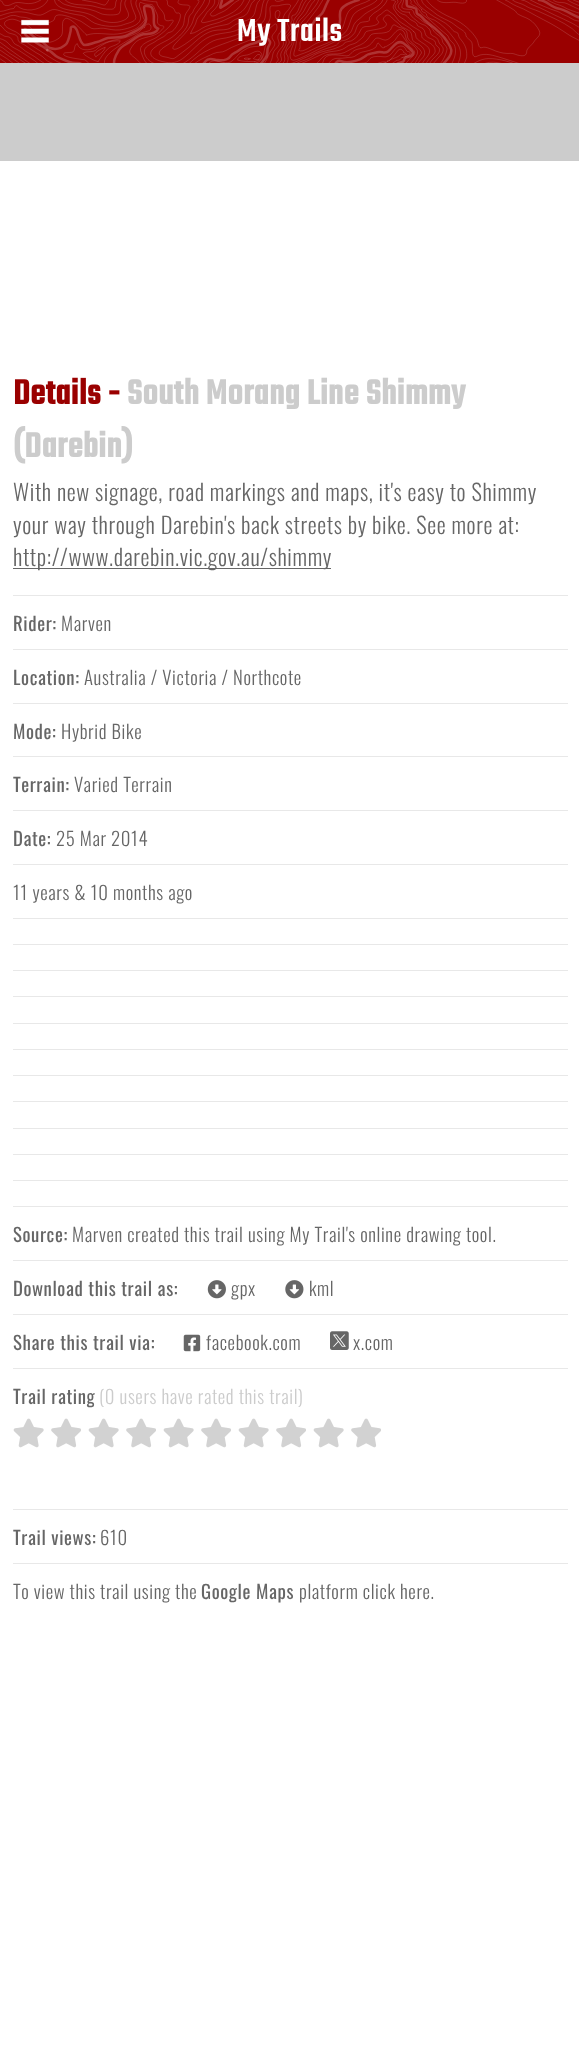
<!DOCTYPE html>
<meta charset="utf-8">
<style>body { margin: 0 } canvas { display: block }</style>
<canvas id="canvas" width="579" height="2049"></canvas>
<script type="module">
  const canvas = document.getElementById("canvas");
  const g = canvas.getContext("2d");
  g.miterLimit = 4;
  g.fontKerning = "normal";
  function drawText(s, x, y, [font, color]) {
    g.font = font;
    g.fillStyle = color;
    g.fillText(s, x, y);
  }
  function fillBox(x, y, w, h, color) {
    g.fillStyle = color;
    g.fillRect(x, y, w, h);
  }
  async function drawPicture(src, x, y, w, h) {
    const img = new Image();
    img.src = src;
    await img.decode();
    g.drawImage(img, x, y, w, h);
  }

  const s1 = ["500 35px Teko", "#FFFFFF"];
  const s2 = ["bold 37.5px Teko", "#9A0000"];
  const s3 = ["bold 37.5px Teko", "#CCCCCC"];
  const s4 = ["300 22.5px Oswald", "#666666"];
  const s5 = ["18.75px Oswald", "#666666"];
  const s6 = ["300 18.75px Oswald", "#666666"];
  const s7 = ["300 18.75px Oswald", "#CCCCCC"];

  fillBox(0, 0, 579, 2049, "#FFFFFF");
  fillBox(0, 0, 579, 63, "#9A0000");
  await drawPicture("pic1.png", 0, 0, 579, 63);
  await drawPicture("pic2.png", 21, 19, 28, 24);
  g.letterSpacing = "0.62px";
  drawText("My Trails", 237, 41, s1);
  fillBox(0, 63, 579, 98, "#CCCCCC");
  drawText("Details -", 13, 404, s2);
  drawText("South Morang Line Shimmy", 127, 404, s3);
  drawText("(Darebin)", 13, 457, s3);
  drawText("With new signage, road markings and maps, it's easy to Shimmy", 13, 501, s4);
  drawText("your way through Darebin's back streets by bike. See more at:", 13, 534, s4);
  fillBox(13, 568, 318, 1, "#666666");
  drawText("http://www.darebin.vic.gov.au/shimmy", 13, 566, s4);
  fillBox(13, 595, 555, 1, "#E8E8E8");
  drawText("Rider:", 13, 631, s5);
  drawText("Marven", 61, 631, s6);
  fillBox(13, 649, 555, 1, "#E8E8E8");
  drawText("Location:", 13, 685, s5);
  drawText("Australia / Victoria / Northcote", 84, 685, s6);
  fillBox(13, 703, 555, 1, "#E8E8E8");
  drawText("Mode:", 13, 739, s5);
  drawText("Hybrid Bike", 61, 739, s6);
  fillBox(13, 756, 555, 1, "#E8E8E8");
  drawText("Terrain:", 13, 792, s5);
  drawText("Varied Terrain", 74, 792, s6);
  fillBox(13, 810, 555, 1, "#E8E8E8");
  drawText("Date:", 13, 846, s5);
  drawText("25 Mar 2014", 56, 846, s6);
  fillBox(13, 864, 555, 1, "#E8E8E8");
  drawText("11 years & 10 months ago", 13, 900, s6);
  fillBox(13, 918, 555, 1, "#E8E8E8");
  fillBox(13, 944, 555, 1, "#E8E8E8");
  fillBox(13, 970, 555, 1, "#E8E8E8");
  fillBox(13, 996, 555, 1, "#E8E8E8");
  fillBox(13, 1023, 555, 1, "#E8E8E8");
  fillBox(13, 1049, 555, 1, "#E8E8E8");
  fillBox(13, 1075, 555, 1, "#E8E8E8");
  fillBox(13, 1101, 555, 1, "#E8E8E8");
  fillBox(13, 1128, 555, 1, "#E8E8E8");
  fillBox(13, 1154, 555, 1, "#E8E8E8");
  fillBox(13, 1180, 555, 1, "#E8E8E8");
  fillBox(13, 1206, 555, 1, "#E8E8E8");
  drawText("Source:", 13, 1242, s5);
  drawText("Marven created this trail using My Trail's online drawing tool.", 72, 1242, s6);
  fillBox(13, 1260, 555, 1, "#E8E8E8");
  drawText("Download this trail as:", 13, 1296, s5);
  await drawPicture("pic3.png", 207, 1280, 19, 19);
  drawText("gpx", 231, 1296, s6);
  await drawPicture("pic4.png", 285, 1280, 19, 19);
  drawText("kml", 309, 1296, s6);
  fillBox(13, 1314, 555, 1, "#E8E8E8");
  drawText("Share this trail via:", 13, 1350, s5);
  await drawPicture("pic5.png", 183, 1334, 18, 18);
  drawText("facebook.com", 206, 1350, s6);
  await drawPicture("pic6.png", 330, 1331, 19, 19);
  drawText("x.com", 353, 1350, s6);
  fillBox(13, 1368, 555, 1, "#E8E8E8");
  drawText("Trail rating", 13, 1404, s5);
  drawText("(0 users have rated this trail)", 99, 1404, s7);
  await drawPicture("pic7.png", 13, 1418, 31, 30);
  await drawPicture("pic8.png", 51, 1418, 30, 30);
  await drawPicture("pic7.png", 88, 1418, 31, 30);
  await drawPicture("pic8.png", 126, 1418, 30, 30);
  await drawPicture("pic7.png", 163, 1418, 31, 30);
  await drawPicture("pic8.png", 201, 1418, 30, 30);
  await drawPicture("pic7.png", 238, 1418, 31, 30);
  await drawPicture("pic8.png", 276, 1418, 30, 30);
  await drawPicture("pic7.png", 313, 1418, 31, 30);
  await drawPicture("pic8.png", 351, 1418, 30, 30);
  fillBox(13, 1509, 555, 1, "#E8E8E8");
  drawText("Trail views:", 13, 1545, s5);
  drawText("610", 100, 1545, s6);
  fillBox(13, 1563, 555, 1, "#E8E8E8");
  drawText("To view this trail using the", 13, 1599, s6);
  drawText("Google Maps", 201, 1599, s5);
  drawText("platform click here.", 299, 1599, s6);
</script>
